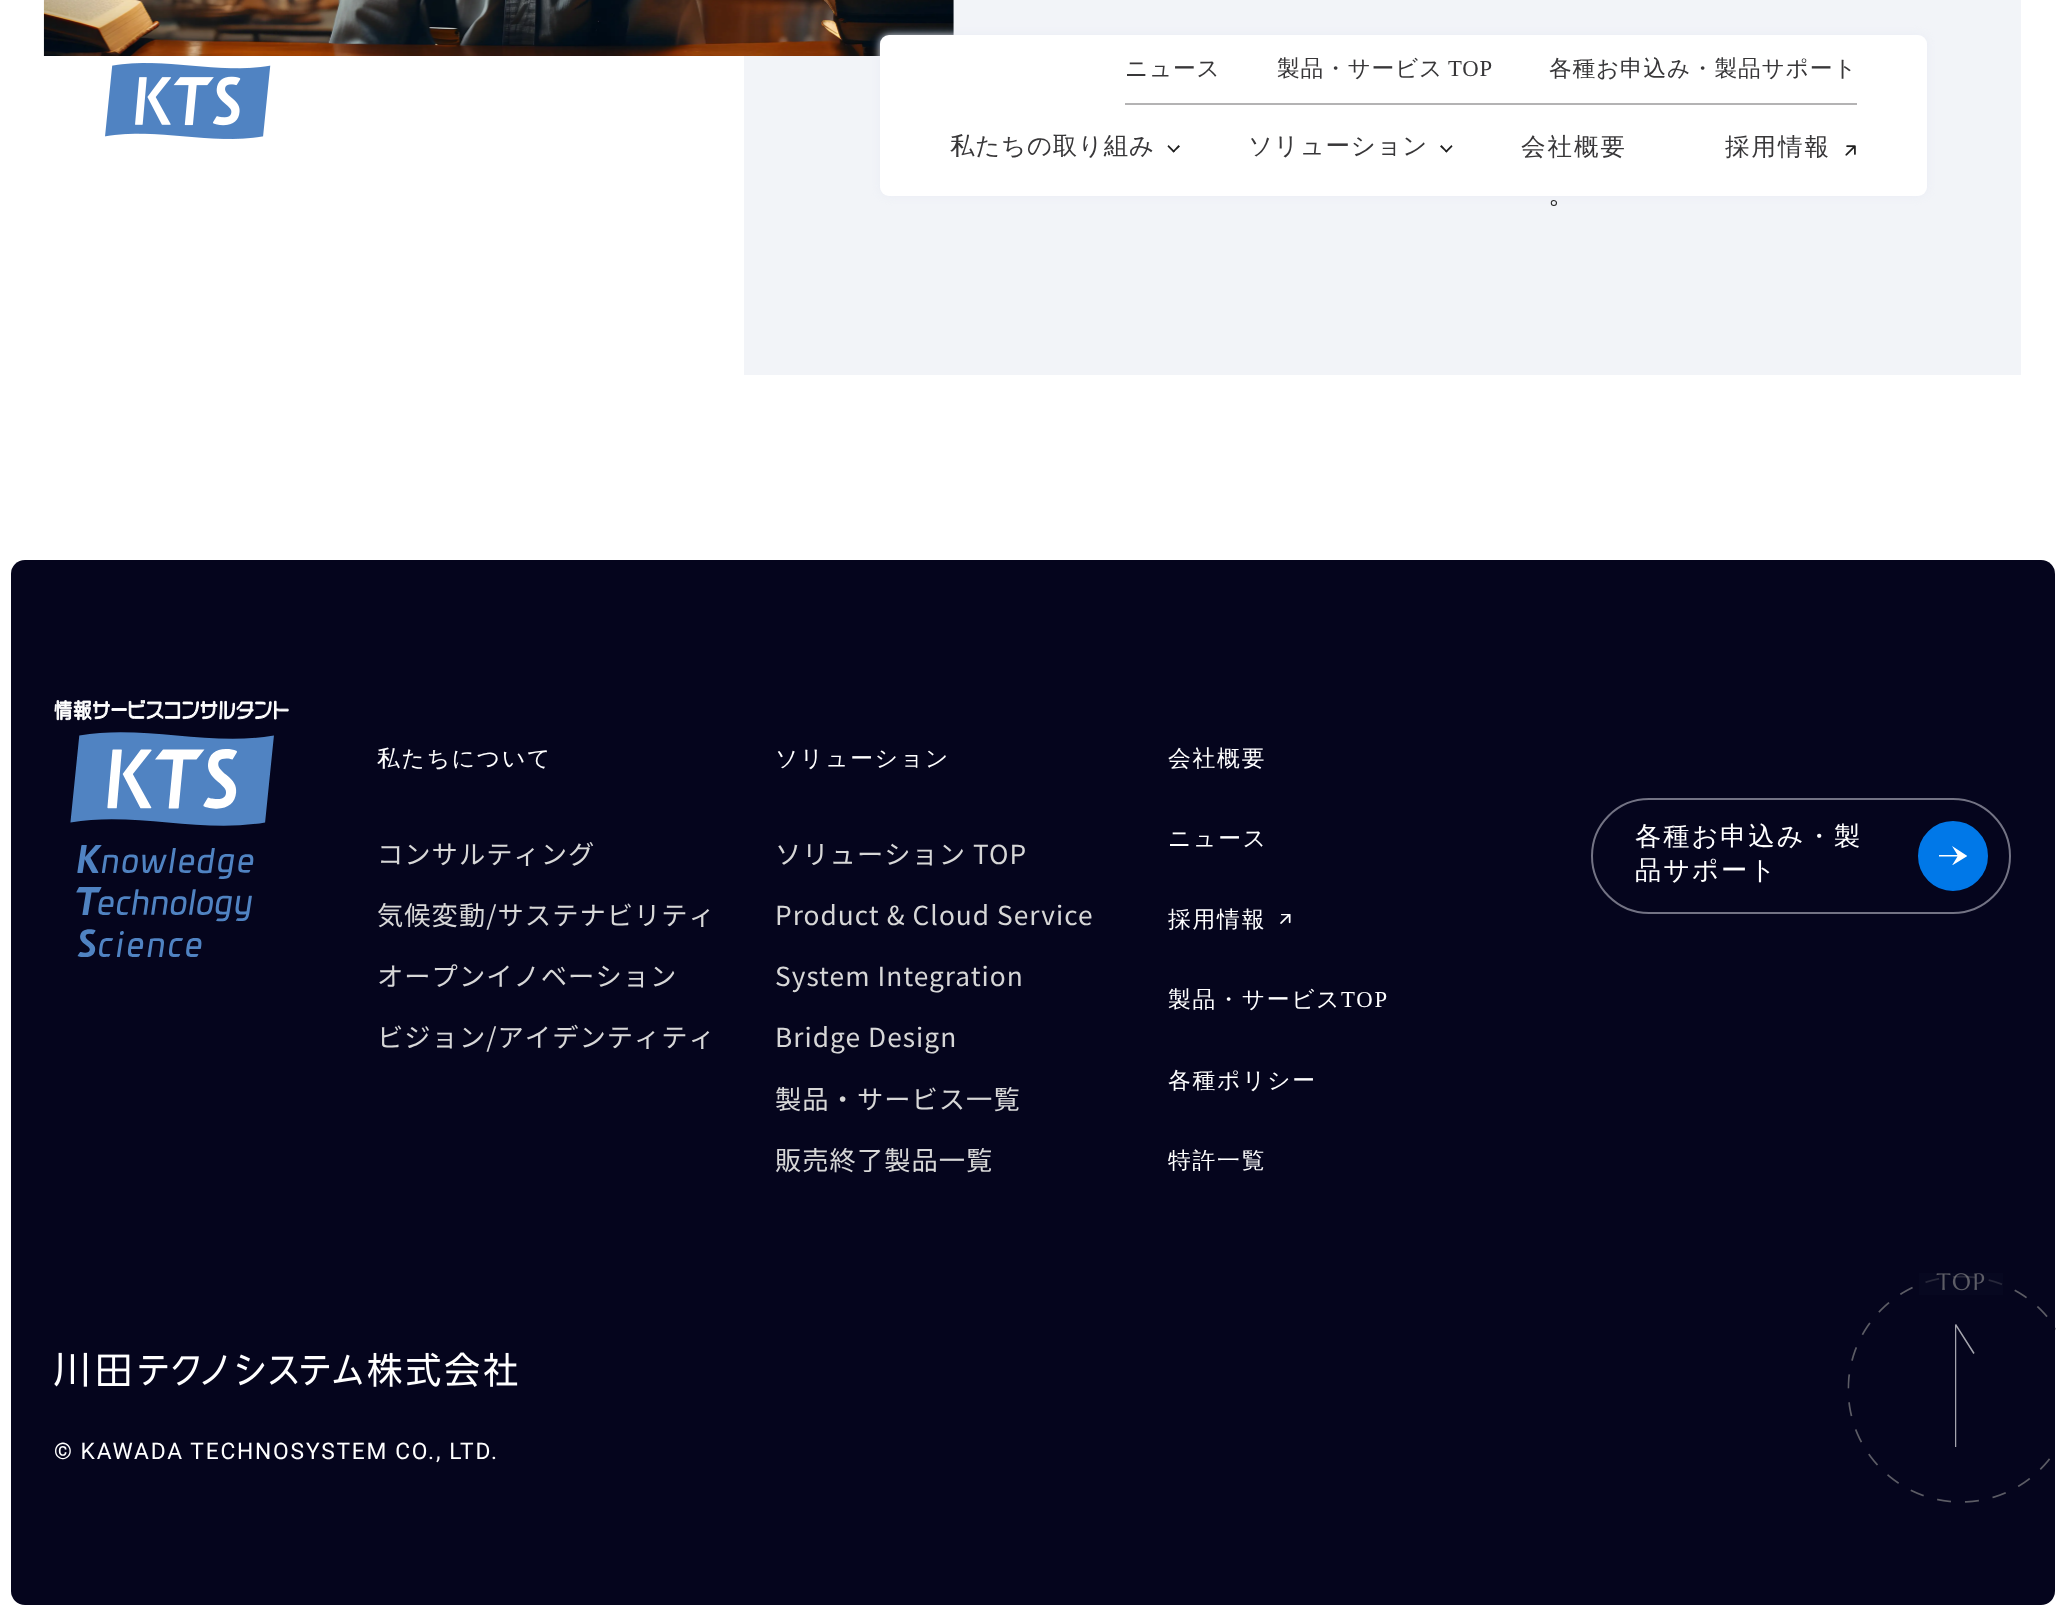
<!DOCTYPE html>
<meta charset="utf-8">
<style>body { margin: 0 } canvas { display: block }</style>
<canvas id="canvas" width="2064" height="1614"></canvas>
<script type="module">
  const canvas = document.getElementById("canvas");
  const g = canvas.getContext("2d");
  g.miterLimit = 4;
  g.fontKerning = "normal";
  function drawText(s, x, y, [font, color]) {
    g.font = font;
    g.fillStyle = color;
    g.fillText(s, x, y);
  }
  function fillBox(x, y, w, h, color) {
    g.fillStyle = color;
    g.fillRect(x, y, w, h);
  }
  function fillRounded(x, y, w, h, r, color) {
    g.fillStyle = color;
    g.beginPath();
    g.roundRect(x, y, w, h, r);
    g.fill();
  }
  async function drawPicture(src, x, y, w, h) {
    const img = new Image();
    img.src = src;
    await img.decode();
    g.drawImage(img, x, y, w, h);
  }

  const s1 = ["500 22.75px WenQuanYi Zen Hei", "#383739"];
  const s2 = ["22.75px Liberation Serif", "#383739"];
  const s3 = ["500 24.5px WenQuanYi Zen Hei", "#383739"];
  const s4 = ["500 28px WenQuanYi Zen Hei", "#1E1E1E"];
  const s5 = ["500 22.75px WenQuanYi Zen Hei", "#FFFFFF"];
  const s6 = ["26.25px Noto Sans JP", "#D7D7D7"];
  const s7 = ["22.75px Liberation Serif", "#FFFFFF"];
  const s8 = ["500 26.25px WenQuanYi Zen Hei", "#FFFFFF"];
  const s9 = ["22.75px Roboto", "#FFFFFF"];

  fillBox(0, 0, 2064, 1614, "#FFFFFF");
  await drawPicture("pic1.png", 105, 63, 166, 76);
  fillBox(744, 0, 1277, 375, "#F2F4F8");
  await drawPicture("pic3.png", 43, 0, 911, 56);
  g.fillStyle = "#E9ECF5";
  g.filter = "blur(4.5px)";
  g.beginPath();
  g.roundRect(880, 35, 1047, 161, 9);
  g.fill();
  g.filter = "none";
  fillRounded(880, 35, 1047, 161, 9, "#FFFFFF");
  fillBox(1125, 103, 732, 2, "#B4B3B4");
  g.letterSpacing = "0.75px";
  drawText("ニュース", 1125, 76, s1);
  drawText("製品・サービス", 1277, 76, s1);
  drawText("TOP", 1448, 76, s2);
  drawText("各種お申込み・製品サポート", 1549, 76, s1);
  drawText("私たちの取り組み", 950, 154, s3);
  g.fillStyle = "#1E1E1E";
  g.beginPath();
  g.moveTo(1178.5, 145);
  g.lineTo(1180, 146.5);
  g.lineTo(1173.5, 152.5);
  g.lineTo(1172.5, 151.5);
  g.closePath();
  g.fill();
  g.beginPath();
  g.moveTo(1168.5, 145);
  g.lineTo(1175, 151.5);
  g.lineTo(1173.5, 152.5);
  g.lineTo(1167.5, 146.5);
  g.closePath();
  g.fill();
  drawText("ソリューション", 1248, 154, s3);
  g.fillStyle = "#1E1E1E";
  g.beginPath();
  g.moveTo(1451.5, 145);
  g.lineTo(1452.5, 146.5);
  g.lineTo(1446.5, 152.5);
  g.lineTo(1445, 151.5);
  g.closePath();
  g.fill();
  g.beginPath();
  g.moveTo(1441.5, 145);
  g.lineTo(1447.5, 151.5);
  g.lineTo(1446.5, 152.5);
  g.lineTo(1440, 146.5);
  g.closePath();
  g.fill();
  g.letterSpacing = "2px";
  drawText("会社概要", 1521, 155, s3);
  drawText("採用情報", 1725, 155, s3);
  await drawPicture("pic2.png", 1845, 145, 11, 11);
  drawText("。", 1548, 203, s4);
  fillRounded(11, 560, 2044, 1045, 14, "#05051D");
  await drawPicture("pic4.png", 54, 700, 235, 257);
  g.letterSpacing = "1.8px";
  drawText("私たちについて", 377, 766, s5);
  g.letterSpacing = "1.05px";
  drawText("コンサルティング", 377, 864, s6);
  drawText("気候変動/サステナビリティ", 377, 925, s6);
  drawText("オープンイノベーション", 377, 986, s6);
  drawText("ビジョン/アイデンティティ", 377, 1047, s6);
  g.letterSpacing = "1.8px";
  drawText("ソリューション", 775, 766, s5);
  g.letterSpacing = "1.05px";
  drawText("ソリューション TOP", 775, 864, s6);
  drawText("Product & Cloud Service", 775, 925, s6);
  drawText("System Integration", 775, 986, s6);
  drawText("Bridge Design", 775, 1047, s6);
  drawText("製品・サービス一覧", 775, 1109, s6);
  drawText("販売終了製品一覧", 775, 1170, s6);
  g.letterSpacing = "1.8px";
  drawText("会社概要", 1168, 766, s5);
  drawText("ニュース", 1168, 846, s5);
  drawText("採用情報", 1168, 927, s5);
  await drawPicture("pic5.png", 1280, 914, 11, 10);
  drawText("製品・サービス", 1168, 1007, s5);
  drawText("TOP", 1341, 1007, s7);
  drawText("各種ポリシー", 1168, 1088, s5);
  drawText("特許一覧", 1168, 1168, s5);
  g.beginPath();
  g.roundRect(1592, 799, 418, 114, 57);
  g.strokeStyle = "#737384";
  g.lineWidth = 2;
  g.stroke();
  g.letterSpacing = "2px";
  drawText("各種お申込み・製", 1635, 845, s8);
  drawText("品サポート", 1635, 879, s8);
  g.fillStyle = "#0078E8";
  g.beginPath();
  g.arc(1953, 856, 34, 0, Math.PI * 2);
  g.fill();
  g.strokeStyle = "#0078E8";
  g.stroke();
  g.save();
  g.beginPath();
  g.rect(1939, 845, 28, 20);
  g.clip();
  g.fillStyle = "#FFFFFF";
  g.beginPath();
  g.moveTo(1952, 865.5);
  g.lineTo(1967.5, 856);
  g.lineTo(1952, 846);
  g.lineTo(1957.5, 855);
  g.lineTo(1939, 855);
  g.lineTo(1939, 856.5);
  g.lineTo(1957.5, 856.5);
  g.closePath();
  g.fill("evenodd");
  g.restore();
  await drawPicture("pic6.png", 54, 1352, 464, 35);
  g.letterSpacing = "1.8px";
  g.wordSpacing = "-0.5px";
  drawText("©︎ KAWADA TECHNOSYSTEM CO., LTD.", 54, 1459, s9);
  await drawPicture("pic7.png", 1847, 1273, 209, 230);
  g.save();
  g.beginPath();
  g.rect(1955, 1323, 21, 124);
  g.clip();
  g.beginPath();
  g.moveTo(1955.5, 1447.5);
  g.lineTo(1955.5, 1325);
  g.moveTo(1974, 1353.5);
  g.lineTo(1955.5, 1324.5);
  g.strokeStyle = "#A5A5AE";
  g.lineWidth = 1.5;
  g.stroke();
  g.restore();
</script>
